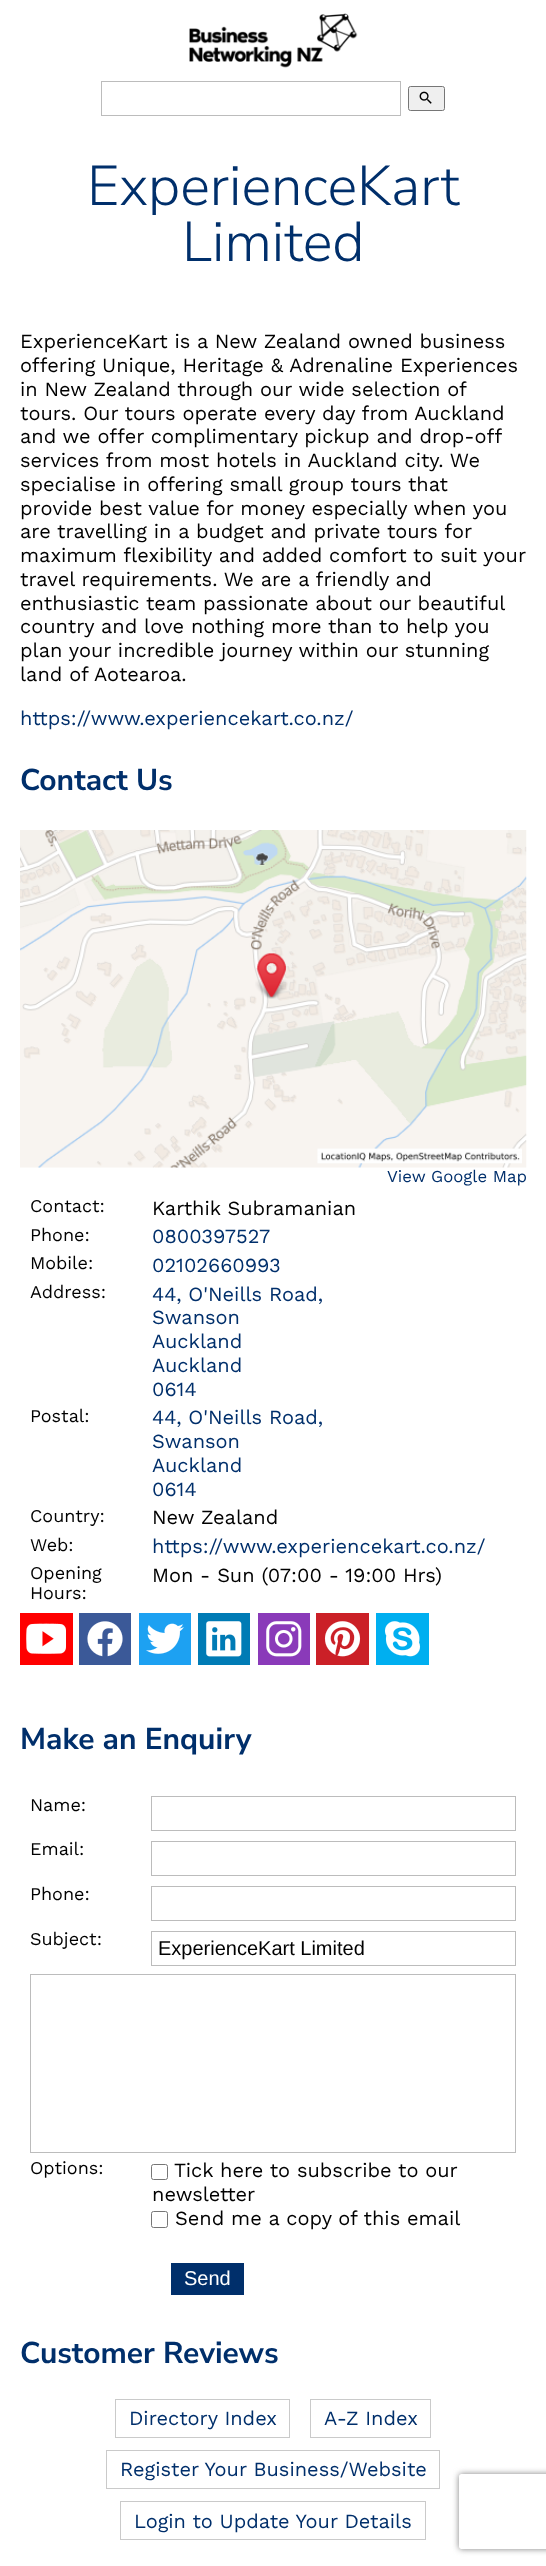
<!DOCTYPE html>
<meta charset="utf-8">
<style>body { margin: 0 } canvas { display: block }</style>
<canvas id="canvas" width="546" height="2566"></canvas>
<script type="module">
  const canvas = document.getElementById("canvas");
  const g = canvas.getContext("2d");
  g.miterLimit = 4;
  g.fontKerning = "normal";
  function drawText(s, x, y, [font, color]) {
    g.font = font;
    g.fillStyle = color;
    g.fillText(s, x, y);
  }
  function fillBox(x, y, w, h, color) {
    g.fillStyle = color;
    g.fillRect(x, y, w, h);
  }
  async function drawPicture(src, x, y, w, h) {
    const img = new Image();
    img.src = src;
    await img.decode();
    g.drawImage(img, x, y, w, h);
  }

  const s1 = ["300 56px Nunito Sans", "#002F6B"];
  const s2 = ["20px Work Sans", "#000000"];
  const s3 = ["20px Work Sans", "#002F6B"];
  const s4 = ["bold 30px Nunito Sans", "#002F6B"];
  const s5 = ["16.75px Work Sans", "#002F6B"];
  const s6 = ["18px Work Sans", "#000000"];
  const s7 = ["20px Liberation Sans", "#000000"];
  const s8 = ["20px Liberation Sans", "#FFFFFF"];

  fillBox(0, 0, 546, 2566, "#FFFFFF");
  await drawPicture("pic1.png", 189, 13, 169, 55);
  g.strokeStyle = "#BCBCBC";
  g.strokeRect(101.5, 81.5, 299, 34);
  g.fillStyle = "#EFEFEF";
  g.beginPath();
  g.roundRect(408.5, 86.5, 36, 24, 2);
  g.fill();
  g.strokeStyle = "#767676";
  g.stroke();
  await drawPicture("pic2.png", 419, 91, 13, 13);
  drawText("ExperienceKart", 87, 205, s1);
  drawText("Limited", 182, 261, s1);
  drawText("ExperienceKart is a New Zealand owned business", 20, 348, s2);
  drawText("offering Unique, Heritage & Adrenaline Experiences", 20, 372, s2);
  drawText("in New Zealand through our wide selection of", 20, 396, s2);
  drawText("tours. Our tours operate every day from Auckland", 20, 420, s2);
  drawText("and we offer complimentary pickup and drop-off", 20, 443, s2);
  drawText("services from most hotels in Auckland city. We", 20, 467, s2);
  drawText("specialise in offering small group tours that", 20, 491, s2);
  drawText("provide best value for money especially when you", 20, 515, s2);
  drawText("are travelling in a budget and private tours for", 20, 538, s2);
  drawText("maximum flexibility and added comfort to suit your", 20, 562, s2);
  drawText("travel requirements. We are a friendly and", 20, 586, s2);
  drawText("enthusiastic team passionate about our beautiful", 20, 610, s2);
  drawText("country and love nothing more than to help you", 20, 633, s2);
  drawText("plan your incredible journey within our stunning", 20, 657, s2);
  drawText("land of Aotearoa.", 20, 681, s2);
  drawText("https://www.experiencekart.co.nz/", 20, 725, s3);
  drawText("Contact Us", 20, 790, s4);
  await drawPicture("pic3.png", 20, 830, 507, 338);
  drawText("View Google Map", 387, 1182, s5);
  drawText("Contact:", 30, 1212, s6);
  drawText("Karthik Subramanian", 152, 1215, s2);
  drawText("Phone:", 30, 1241, s6);
  drawText("0800397527", 152, 1243, s3);
  drawText("Mobile:", 30, 1269, s6);
  drawText("02102660993", 152, 1272, s3);
  drawText("Address:", 30, 1298, s6);
  drawText("44, O'Neills Road,", 152, 1301, s3);
  drawText("Swanson", 152, 1324, s3);
  drawText("Auckland", 152, 1348, s3);
  drawText("Auckland", 152, 1372, s3);
  drawText("0614", 152, 1396, s3);
  drawText("Postal:", 30, 1422, s6);
  drawText("44, O'Neills Road,", 152, 1424, s3);
  drawText("Swanson", 152, 1448, s3);
  drawText("Auckland", 152, 1472, s3);
  drawText("0614", 152, 1496, s3);
  drawText("Country:", 30, 1522, s6);
  drawText("New Zealand", 152, 1524, s2);
  drawText("Web:", 30, 1551, s6);
  drawText("https://www.experiencekart.co.nz/", 152, 1553, s3);
  drawText("Opening", 30, 1579, s6);
  drawText("Hours:", 30, 1599, s6);
  drawText("Mon - Sun (07:00 - 19:00 Hrs)", 152, 1582, s2);
  fillBox(20, 1613, 53, 52, "#FF0000");
  await drawPicture("pic4.png", 26, 1623, 40, 31);
  fillBox(79, 1613, 52, 52, "#3B5998");
  await drawPicture("pic5.png", 87, 1621, 36, 36);
  fillBox(139, 1613, 52, 52, "#1DA1F2");
  await drawPicture("pic6.png", 146, 1623, 38, 31);
  fillBox(198, 1613, 52, 52, "#007BB5");
  await drawPicture("pic7.png", 206, 1621, 36, 36);
  fillBox(258, 1613, 52, 52, "#8A3AB9");
  await drawPicture("pic8.png", 266, 1621, 36, 36);
  fillBox(316, 1613, 53, 52, "#CB2027");
  await drawPicture("pic9.png", 324, 1621, 37, 36);
  fillBox(376, 1613, 53, 52, "#00AFF0");
  await drawPicture("pic10.png", 384, 1621, 37, 36);
  drawText("Make an Enquiry", 20, 1749, s4);
  drawText("Name:", 30, 1811, s6);
  g.strokeStyle = "#BCBCBC";
  g.strokeRect(151.5, 1796.5, 364, 34);
  drawText("Email:", 30, 1855, s6);
  g.strokeRect(151.5, 1841.5, 364, 34);
  drawText("Phone:", 30, 1900, s6);
  g.strokeRect(151.5, 1886.5, 364, 34);
  drawText("Subject:", 30, 1945, s6);
  g.strokeRect(151.5, 1931.5, 364, 34);
  drawText("ExperienceKart Limited", 158, 1955, s7);
  g.strokeRect(30.5, 1974.5, 485, 178);
  drawText("Options:", 30, 2174, s6);
  g.beginPath();
  g.roundRect(151.5, 2164.5, 16, 15, 2);
  g.strokeStyle = "#767676";
  g.stroke();
  drawText("Tick here to subscribe to our", 174, 2177, s2);
  drawText("newsletter", 152, 2201, s2);
  g.beginPath();
  g.roundRect(151.5, 2211.5, 16, 16, 2);
  g.stroke();
  drawText("Send me a copy of this email", 175, 2225, s2);
  fillBox(171, 2263, 73, 32, "#002F6B");
  drawText("Send", 184, 2285, s8);
  drawText("Customer Reviews", 20, 2363, s4);
  g.strokeStyle = "#CACACA";
  g.strokeRect(115.5, 2399.5, 174, 38);
  drawText("Directory Index", 129, 2425, s3);
  g.strokeRect(310.5, 2399.5, 120, 38);
  drawText("A-Z Index", 324, 2425, s3);
  g.strokeRect(106.5, 2450.5, 333, 38);
  drawText("Register Your Business/Website", 120, 2476, s3);
  g.strokeRect(120.5, 2501.5, 305, 38);
  drawText("Login to Update Your Details", 134, 2528, s3);
  g.save();
  g.beginPath();
  g.moveTo(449, 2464);
  g.lineTo(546, 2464);
  g.lineTo(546, 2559);
  g.lineTo(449, 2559);
  g.closePath();
  g.moveTo(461.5, 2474);
  g.lineTo(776.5, 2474);
  g.bezierCurveTo(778, 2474, 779, 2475, 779, 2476.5);
  g.lineTo(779, 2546.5);
  g.bezierCurveTo(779, 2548, 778, 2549, 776.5, 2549);
  g.lineTo(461.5, 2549);
  g.bezierCurveTo(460, 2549, 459, 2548, 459, 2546.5);
  g.lineTo(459, 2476.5);
  g.bezierCurveTo(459, 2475, 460, 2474, 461.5, 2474);
  g.closePath();
  g.clip("evenodd");
  g.fillStyle = "#808080";
  g.filter = "blur(3px)";
  g.beginPath();
  g.roundRect(459, 2474, 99, 75, 2.5);
  g.fill();
  g.filter = "none";
  g.restore();
</script>
